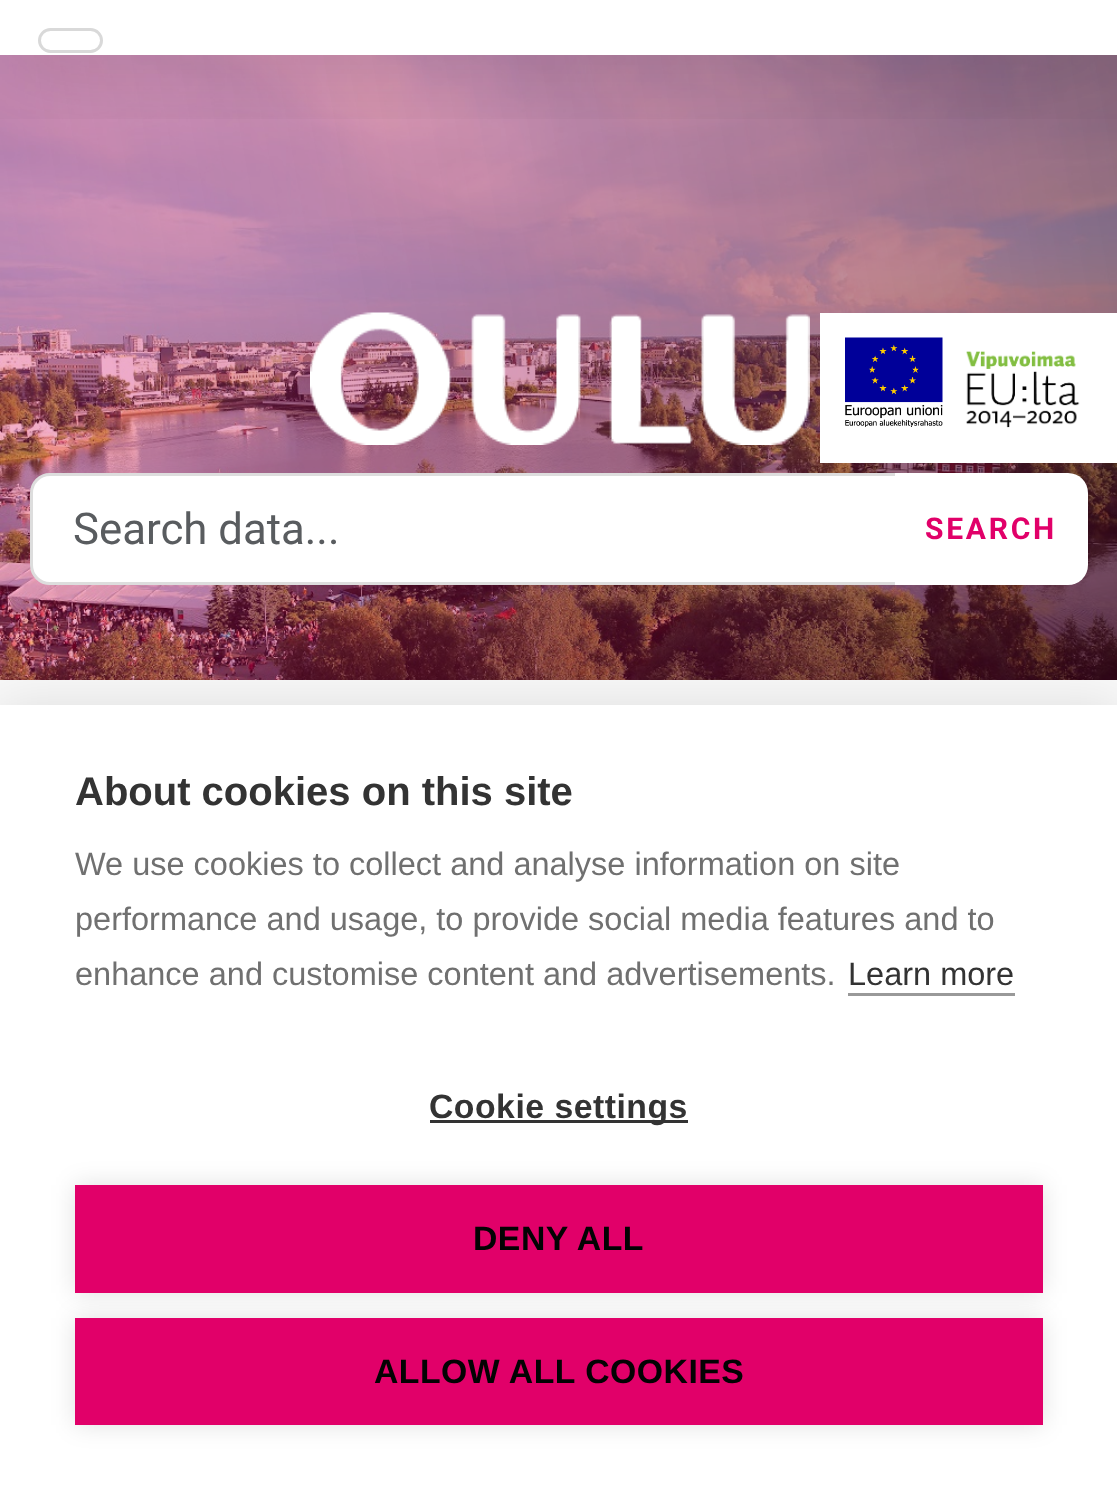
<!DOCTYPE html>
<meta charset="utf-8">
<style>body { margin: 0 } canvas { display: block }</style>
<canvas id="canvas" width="1117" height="1486"></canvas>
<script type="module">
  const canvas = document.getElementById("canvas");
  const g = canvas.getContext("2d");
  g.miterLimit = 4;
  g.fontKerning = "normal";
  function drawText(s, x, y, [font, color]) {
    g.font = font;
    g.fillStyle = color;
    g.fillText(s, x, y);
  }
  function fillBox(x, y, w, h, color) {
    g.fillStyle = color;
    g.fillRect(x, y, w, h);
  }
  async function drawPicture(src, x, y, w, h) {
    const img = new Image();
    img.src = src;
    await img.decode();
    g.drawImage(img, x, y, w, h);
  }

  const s1 = ["43.75px Roboto", "#595C5F"];
  const s2 = ["bold 30px Roboto", "#E10069"];
  const s3 = ["bold 40px Liberation Sans", "#333333"];
  const s4 = ["32.5px Liberation Sans", "#707070"];
  const s5 = ["32.5px Liberation Sans", "#333333"];
  const s6 = ["bold 33.75px Liberation Sans", "#333333"];
  const s7 = ["bold 33.75px Liberation Sans", "#030303"];

  fillBox(0, 0, 1117, 1486, "#FFFFFF");
  await drawPicture("pic4.png", 0, 55, 1117, 625);
  g.save();
  g.beginPath();
  g.rect(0, 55, 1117, 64);
  g.clip();
  g.fillStyle = "rgba(0, 0, 0, 0.2)";
  g.filter = "blur(50px)";
  g.beginPath();
  g.rect(0, 3, 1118, 55);
  g.fill();
  g.filter = "none";
  g.restore();
  g.beginPath();
  g.roundRect(39.5, 29.5, 62, 22, 11);
  g.strokeStyle = "#D9D9D9";
  g.lineWidth = 3;
  g.stroke();
  await drawPicture("pic1.png", 310, 312, 500, 133);
  fillBox(820, 313, 297, 150, "#FFFFFF");
  await drawPicture("pic2.png", 845, 337, 98, 90);
  await drawPicture("pic3.png", 966, 351, 114, 77);
  g.beginPath();
  g.roundRect(31.5, 474.5, 865, 109, [18.5, 0, 0, 18.5]);
  g.fill();
  g.strokeStyle = "#DDDDDD";
  g.stroke();
  drawText("Search data...", 73, 544, s1);
  g.fillStyle = "#FFFFFF";
  g.beginPath();
  g.roundRect(895, 473, 193, 112, [0, 20, 20, 0]);
  g.fill();
  g.letterSpacing = "2.75px";
  drawText("SEARCH", 925, 539, s2);
  fillBox(0, 680, 1117, 25, "#F8F8F8");
  g.fillStyle = "rgba(0, 0, 0, 0.1)";
  g.filter = "blur(25px)";
  g.beginPath();
  g.rect(0, 705, 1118, 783);
  g.fill();
  g.filter = "none";
  fillBox(0, 705, 1117, 781, "#FFFFFF");
  g.letterSpacing = "0px";
  drawText("About cookies on this site", 75, 805, s3);
  drawText("We use cookies to collect and analyse information on site", 75, 875, s4);
  drawText("performance and usage, to provide social media features and to", 75, 930, s4);
  drawText("enhance and customise content and advertisements.", 75, 985, s4);
  drawText("Learn more", 848, 985, s5);
  fillBox(848, 993, 167, 3, "#999999");
  fillBox(430, 1120, 258, 3, "#333333");
  g.letterSpacing = "0.5px";
  drawText("Cookie settings", 429, 1118, s6);
  g.fillStyle = "rgba(0, 0, 0, 0.12)";
  g.filter = "blur(12.5px)";
  g.beginPath();
  g.rect(75, 1185, 968, 108);
  g.fill();
  g.filter = "none";
  fillBox(75, 1185, 968, 108, "#E10069");
  drawText("DENY ALL", 473, 1250, s7);
  g.fillStyle = "rgba(0, 0, 0, 0.12)";
  g.filter = "blur(12.5px)";
  g.beginPath();
  g.rect(75, 1318, 968, 107);
  g.fill();
  g.filter = "none";
  fillBox(75, 1318, 968, 107, "#E10069");
  drawText("ALLOW ALL COOKIES", 374, 1383, s7);
</script>
